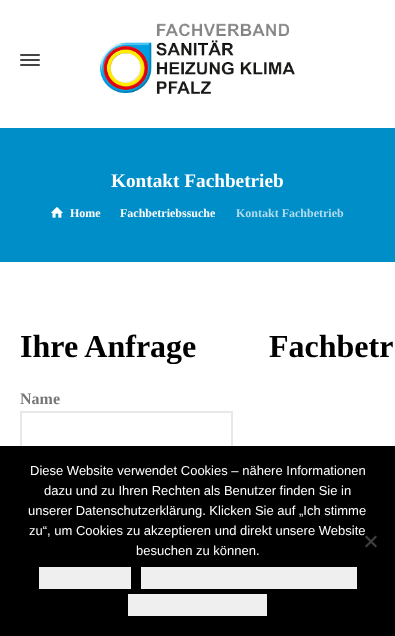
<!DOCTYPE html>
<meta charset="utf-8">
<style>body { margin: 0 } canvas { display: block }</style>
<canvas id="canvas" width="395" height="636"></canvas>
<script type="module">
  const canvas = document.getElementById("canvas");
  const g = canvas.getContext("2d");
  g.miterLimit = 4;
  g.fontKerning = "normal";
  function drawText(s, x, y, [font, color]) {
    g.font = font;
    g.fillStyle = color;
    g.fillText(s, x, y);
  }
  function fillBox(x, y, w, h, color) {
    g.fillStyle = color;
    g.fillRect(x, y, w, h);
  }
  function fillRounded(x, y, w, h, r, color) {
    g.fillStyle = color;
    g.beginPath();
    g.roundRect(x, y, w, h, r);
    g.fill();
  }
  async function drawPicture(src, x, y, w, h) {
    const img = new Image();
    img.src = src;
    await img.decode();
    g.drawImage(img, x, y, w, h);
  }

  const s1 = ["bold 19.25px Liberation Serif", "#FFFFFF"];
  const s2 = ["bold 12px Liberation Serif", "#FFFFFF"];
  const s3 = ["bold 12px Liberation Serif", "#B3DDEF"];
  const s4 = ["bold 32px Liberation Serif", "#000000"];
  const s5 = ["bold 16px Liberation Serif", "#777777"];
  const s6 = ["13px Liberation Sans", "#FFFFFF"];

  fillBox(0, 0, 395, 636, "#FFFFFF");
  fillRounded(20, 54, 20, 2, 1, "#444444");
  fillRounded(20, 59, 20, 2, 1, "#444444");
  fillRounded(20, 64, 20, 2, 1, "#444444");
  await drawPicture("pic1.png", 100, 23, 195, 71);
  fillBox(0, 128, 395, 134, "#008EC8");
  drawText("Kontakt Fachbetrieb", 111, 187, s1);
  await drawPicture("pic2.png", 51, 207, 12, 11);
  drawText("Home", 70, 217, s2);
  drawText("Fachbetriebssuche", 120, 217, s2);
  drawText("Kontakt Fachbetrieb", 236, 217, s3);
  drawText("Ihre Anfrage", 20, 357, s4);
  drawText("Name", 20, 404, s5);
  g.strokeStyle = "#E8E8E8";
  g.lineWidth = 2;
  g.strokeRect(21, 412, 211, 43);
  drawText("Fachbetr", 269, 357, s4);
  fillBox(0, 446, 395, 190, "#000000");
  drawText("Diese Website verwendet Cookies – nähere Informationen", 30, 475, s6);
  drawText("dazu und zu Ihren Rechten als Benutzer finden Sie in", 44, 495, s6);
  drawText("unserer Datenschutzerklärung. Klicken Sie auf „Ich stimme", 28, 515, s6);
  drawText("zu“, um Cookies zu akzeptieren und direkt unsere Website", 29, 535, s6);
  drawText("besuchen zu können.", 136, 555, s6);
  g.fillStyle = "#404040";
  g.beginPath();
  g.moveTo(375.5, 535.5);
  g.lineTo(377, 537);
  g.lineTo(366.5, 547.5);
  g.lineTo(365, 546);
  g.closePath();
  g.fill();
  g.beginPath();
  g.moveTo(365, 537);
  g.lineTo(366.5, 535.5);
  g.lineTo(377, 546);
  g.lineTo(375.5, 547.5);
  g.closePath();
  g.fill();
  fillBox(39, 567, 92, 22, "#EFEFEF");
  fillBox(141, 567, 216, 22, "#EFEFEF");
  fillBox(128, 594, 139, 22, "#EFEFEF");
</script>
